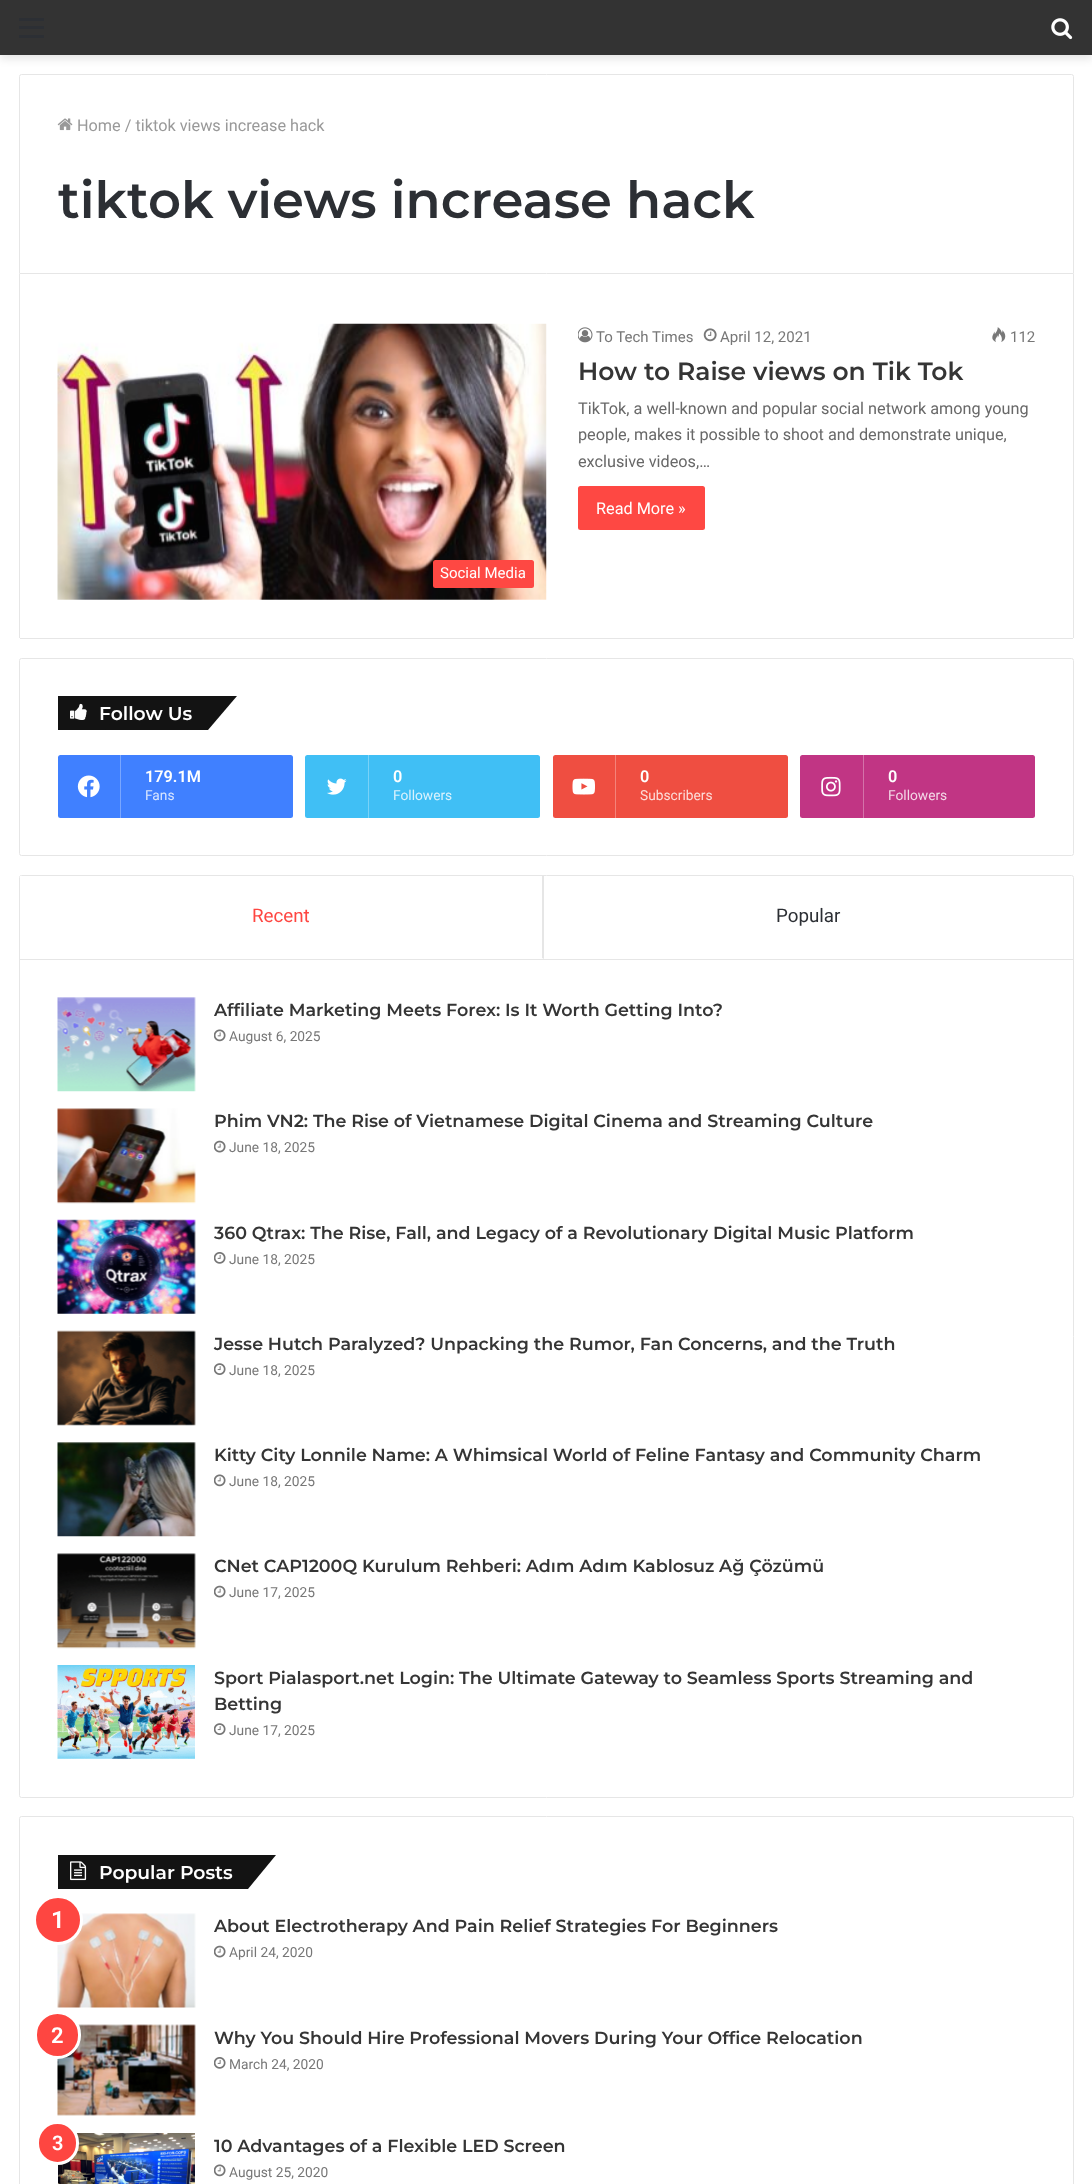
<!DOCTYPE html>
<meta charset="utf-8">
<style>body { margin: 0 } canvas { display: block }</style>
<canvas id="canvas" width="1092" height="2184"></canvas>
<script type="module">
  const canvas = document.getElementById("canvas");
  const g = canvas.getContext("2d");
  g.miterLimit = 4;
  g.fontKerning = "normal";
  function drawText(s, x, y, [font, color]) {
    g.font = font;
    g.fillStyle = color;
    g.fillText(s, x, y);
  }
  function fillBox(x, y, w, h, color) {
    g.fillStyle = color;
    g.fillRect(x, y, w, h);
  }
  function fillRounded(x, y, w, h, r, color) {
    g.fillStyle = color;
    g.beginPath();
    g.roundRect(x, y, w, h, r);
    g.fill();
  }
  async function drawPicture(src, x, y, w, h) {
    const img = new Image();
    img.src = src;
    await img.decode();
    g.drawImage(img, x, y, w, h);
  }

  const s1 = ["16.25px Roboto", "#999999"];
  const s2 = ["600 51.25px Montserrat", "#2C2F34"];
  const s3 = ["15px Roboto", "#777777"];
  const s4 = ["600 25px Montserrat", "#353535"];
  const s5 = ["16.25px Roboto", "#686868"];
  const s6 = ["16.25px Roboto", "#FFFFFF"];
  const s7 = ["15px Roboto", "#FFFFFF"];
  const s8 = ["600 18.75px Montserrat", "#FFFFFF"];
  const s9 = ["600 16.25px Roboto", "#FFFFFF"];
  const s10 = ["13.75px Roboto", "#D9E6FF"];
  const s11 = ["13.75px Roboto", "#D9F2FD"];
  const s12 = ["13.75px Roboto", "#FCDCD9"];
  const s13 = ["13.75px Roboto", "#F3D7E6"];
  const s14 = ["18.75px Roboto", "#FE4641"];
  const s15 = ["18.75px Roboto", "#2C2F34"];
  const s16 = ["600 17.5px Montserrat", "#353535"];
  const s17 = ["13.75px Roboto", "#777777"];
  const s18 = ["600 24px Roboto", "#FFFFFF"];
  const s19 = ["600 22px Roboto", "#FFFFFF"];
  const s20 = ["600 20px Roboto", "#FFFFFF"];

  fillBox(0, 0, 1092, 2184, "#FFFFFF");
  g.fillStyle = "rgba(0, 0, 0, 0.1)";
  g.filter = "blur(4.5px)";
  g.beginPath();
  g.rect(0, 4, 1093, 55);
  g.fill();
  g.filter = "none";
  fillBox(0, 0, 1092, 55, "#333333");
  fillBox(19, 26, 25, 3, "#2C2F34");
  fillBox(19, 18, 25, 3, "#2C2F34");
  fillBox(19, 35, 25, 3, "#2C2F34");
  await drawPicture("pic1.png", 1051, 18, 22, 22);
  g.beginPath();
  g.roundRect(19.5, 74.5, 1054, 199, [2, 2, 0, 0]);
  g.strokeStyle = "#E6E6E6";
  g.stroke();
  await drawPicture("pic2.png", 57, 118, 16, 13);
  drawText("Home / tiktok views increase hack", 77, 131, s1);
  drawText("tiktok views increase hack", 58, 218, s2);
  fillBox(1073, 274, 1, 364, "#E6E6E6");
  fillBox(20, 638, 1053, 1, "#E6E6E6");
  fillBox(19, 274, 1, 364, "#E6E6E6");
  await drawPicture("pic3.png", 578, 327, 15, 16);
  drawText("To Tech Times", 596, 342, s3);
  await drawPicture("pic4.png", 703, 328, 14, 14);
  drawText("April 12, 2021", 720, 342, s3);
  await drawPicture("pic5.png", 992, 327, 14, 15);
  drawText("112", 1010, 342, s3);
  drawText("How to Raise views on Tik Tok", 578, 380, s4);
  drawText("TikTok, a well-known and popular social network among young", 578, 414, s5);
  drawText("people, makes it possible to shoot and demonstrate unique,", 578, 440, s5);
  drawText("exclusive videos,…", 578, 467, s5);
  fillRounded(578, 486, 127, 44, 2.5, "#FE4843");
  drawText("Read More »", 596, 514, s6);
  await drawPicture("pic6.png", 57, 323, 490, 277);
  fillRounded(433, 560, 101, 28, 2.5, "#FE4843");
  drawText("Social Media", 440, 578, s7);
  g.beginPath();
  g.roundRect(19.5, 658.5, 1054, 197, 2);
  g.stroke();
  fillBox(58, 696, 75, 34, "#131313");
  g.beginPath();
  g.moveTo(133, 696);
  g.lineTo(237, 696);
  g.lineTo(208, 730);
  g.lineTo(105, 730);
  g.closePath();
  g.fill();
  await drawPicture("pic7.png", 70, 703, 17, 17);
  drawText("Follow Us", 99, 720, s8);
  fillRounded(58, 755, 235, 63, 2.5, "#4080FF");
  fillBox(120, 755, 1, 63, "#79A6FF");
  await drawPicture("pic8.png", 77, 775, 23, 23);
  drawText("179.1M", 145, 782, s9);
  drawText("Fans", 145, 800, s10);
  fillRounded(305, 755, 235, 63, 2.5, "#40BFF5");
  fillBox(368, 755, 1, 63, "#79D2F8");
  await drawPicture("pic9.png", 327, 778, 20, 17);
  drawText("0", 393, 782, s9);
  drawText("Followers", 393, 800, s11);
  fillRounded(553, 755, 235, 63, 2.5, "#EF4E41");
  fillBox(615, 755, 1, 63, "#F4837A");
  await drawPicture("pic10.png", 572, 778, 23, 17);
  drawText("0", 640, 782, s9);
  drawText("Subscribers", 640, 800, s12);
  fillRounded(800, 755, 235, 63, 2.5, "#C13584");
  fillBox(863, 755, 1, 63, "#D472A9");
  await drawPicture("pic11.png", 821, 776, 20, 21);
  drawText("0", 888, 782, s9);
  drawText("Followers", 888, 800, s13);
  g.beginPath();
  g.roundRect(19.5, 875.5, 1054, 922, 2);
  g.stroke();
  fillBox(20, 959, 1053, 1, "#E6E6E6");
  fillBox(20, 876, 1, 1, "#FFFFFF");
  g.fillStyle = "#E6E6E6";
  g.beginPath();
  g.moveTo(544, 876);
  g.lineTo(544, 959);
  g.lineTo(542, 958);
  g.lineTo(542, 876);
  g.closePath();
  g.fill();
  drawText("Recent", 252, 922, s14);
  drawText("Popular", 776, 922, s15);
  await drawPicture("pic12.png", 57, 997, 139, 95);
  drawText("Affiliate Marketing Meets Forex: Is It Worth Getting Into?", 214, 1016, s16);
  await drawPicture("pic13.png", 214, 1029, 12, 13);
  drawText("August 6, 2025", 229, 1041, s17);
  await drawPicture("pic14.png", 57, 1108, 139, 96);
  drawText("Phim VN2: The Rise of Vietnamese Digital Cinema and Streaming Culture", 214, 1127, s16);
  await drawPicture("pic15.png", 214, 1140, 12, 13);
  drawText("June 18, 2025", 229, 1152, s17);
  await drawPicture("pic16.png", 57, 1219, 139, 95);
  drawText("360 Qtrax: The Rise, Fall, and Legacy of a Revolutionary Digital Music Platform", 214, 1239, s16);
  await drawPicture("pic17.png", 214, 1252, 12, 12);
  drawText("June 18, 2025", 229, 1264, s17);
  await drawPicture("pic18.png", 57, 1330, 139, 96);
  drawText("Jesse Hutch Paralyzed? Unpacking the Rumor, Fan Concerns, and the Truth", 214, 1350, s16);
  await drawPicture("pic19.png", 214, 1363, 12, 12);
  drawText("June 18, 2025", 229, 1375, s17);
  await drawPicture("pic20.png", 57, 1442, 139, 95);
  drawText("Kitty City Lonnile Name: A Whimsical World of Feline Fantasy and Community Charm", 214, 1461, s16);
  await drawPicture("pic13.png", 214, 1474, 12, 13);
  drawText("June 18, 2025", 229, 1486, s17);
  await drawPicture("pic21.png", 57, 1553, 139, 96);
  drawText("CNet CAP1200Q Kurulum Rehberi: Adım Adım Kablosuz Ağ Çözümü", 214, 1572, s16);
  await drawPicture("pic15.png", 214, 1585, 12, 13);
  drawText("June 17, 2025", 229, 1597, s17);
  await drawPicture("pic22.png", 57, 1665, 138, 94);
  drawText("Sport Pialasport.net Login: The Ultimate Gateway to Seamless Sports Streaming and", 214, 1684, s16);
  drawText("Betting", 214, 1710, s16);
  await drawPicture("pic19.png", 214, 1723, 12, 12);
  drawText("June 17, 2025", 229, 1735, s17);
  g.beginPath();
  g.roundRect(19.5, 1816.5, 1054, 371, 2);
  g.stroke();
  fillBox(58, 1855, 87, 34, "#131313");
  g.beginPath();
  g.moveTo(145, 1855);
  g.lineTo(276, 1855);
  g.lineTo(248, 1889);
  g.lineTo(117, 1889);
  g.closePath();
  g.fill();
  await drawPicture("pic23.png", 70, 1861, 17, 20);
  drawText("Popular Posts", 99, 1879, s8);
  await drawPicture("pic24.png", 57, 1913, 139, 95);
  g.fillStyle = "#FE4641";
  g.beginPath();
  g.arc(58, 1920, 23.5, 0, Math.PI * 2);
  g.fill();
  g.strokeStyle = "#FFFFFF";
  g.lineWidth = 3;
  g.stroke();
  drawText("1", 51, 1928, s18);
  drawText("About Electrotherapy And Pain Relief Strategies For Beginners", 214, 1932, s16);
  await drawPicture("pic15.png", 214, 1945, 12, 13);
  drawText("April 24, 2020", 229, 1957, s17);
  await drawPicture("pic25.png", 57, 2024, 139, 92);
  g.fillStyle = "#FE4641";
  g.beginPath();
  g.roundRect(35.5, 2012.5, 44, 45, 22);
  g.fill();
  g.stroke();
  drawText("2", 51, 2043, s19);
  drawText("Why You Should Hire Professional Movers During Your Office Relocation", 214, 2044, s16);
  await drawPicture("pic17.png", 214, 2057, 12, 12);
  drawText("March 24, 2020", 229, 2069, s17);
  await drawPicture("pic26.png", 58, 2133, 137, 51);
  g.fillStyle = "#FE4641";
  g.beginPath();
  g.roundRect(37.5, 2122.5, 40, 41, 20);
  g.fill();
  g.stroke();
  drawText("3", 52, 2150, s20);
  drawText("10 Advantages of a Flexible LED Screen", 214, 2152, s16);
  await drawPicture("pic13.png", 214, 2164, 12, 13);
  drawText("August 25, 2020", 229, 2177, s17);
</script>
